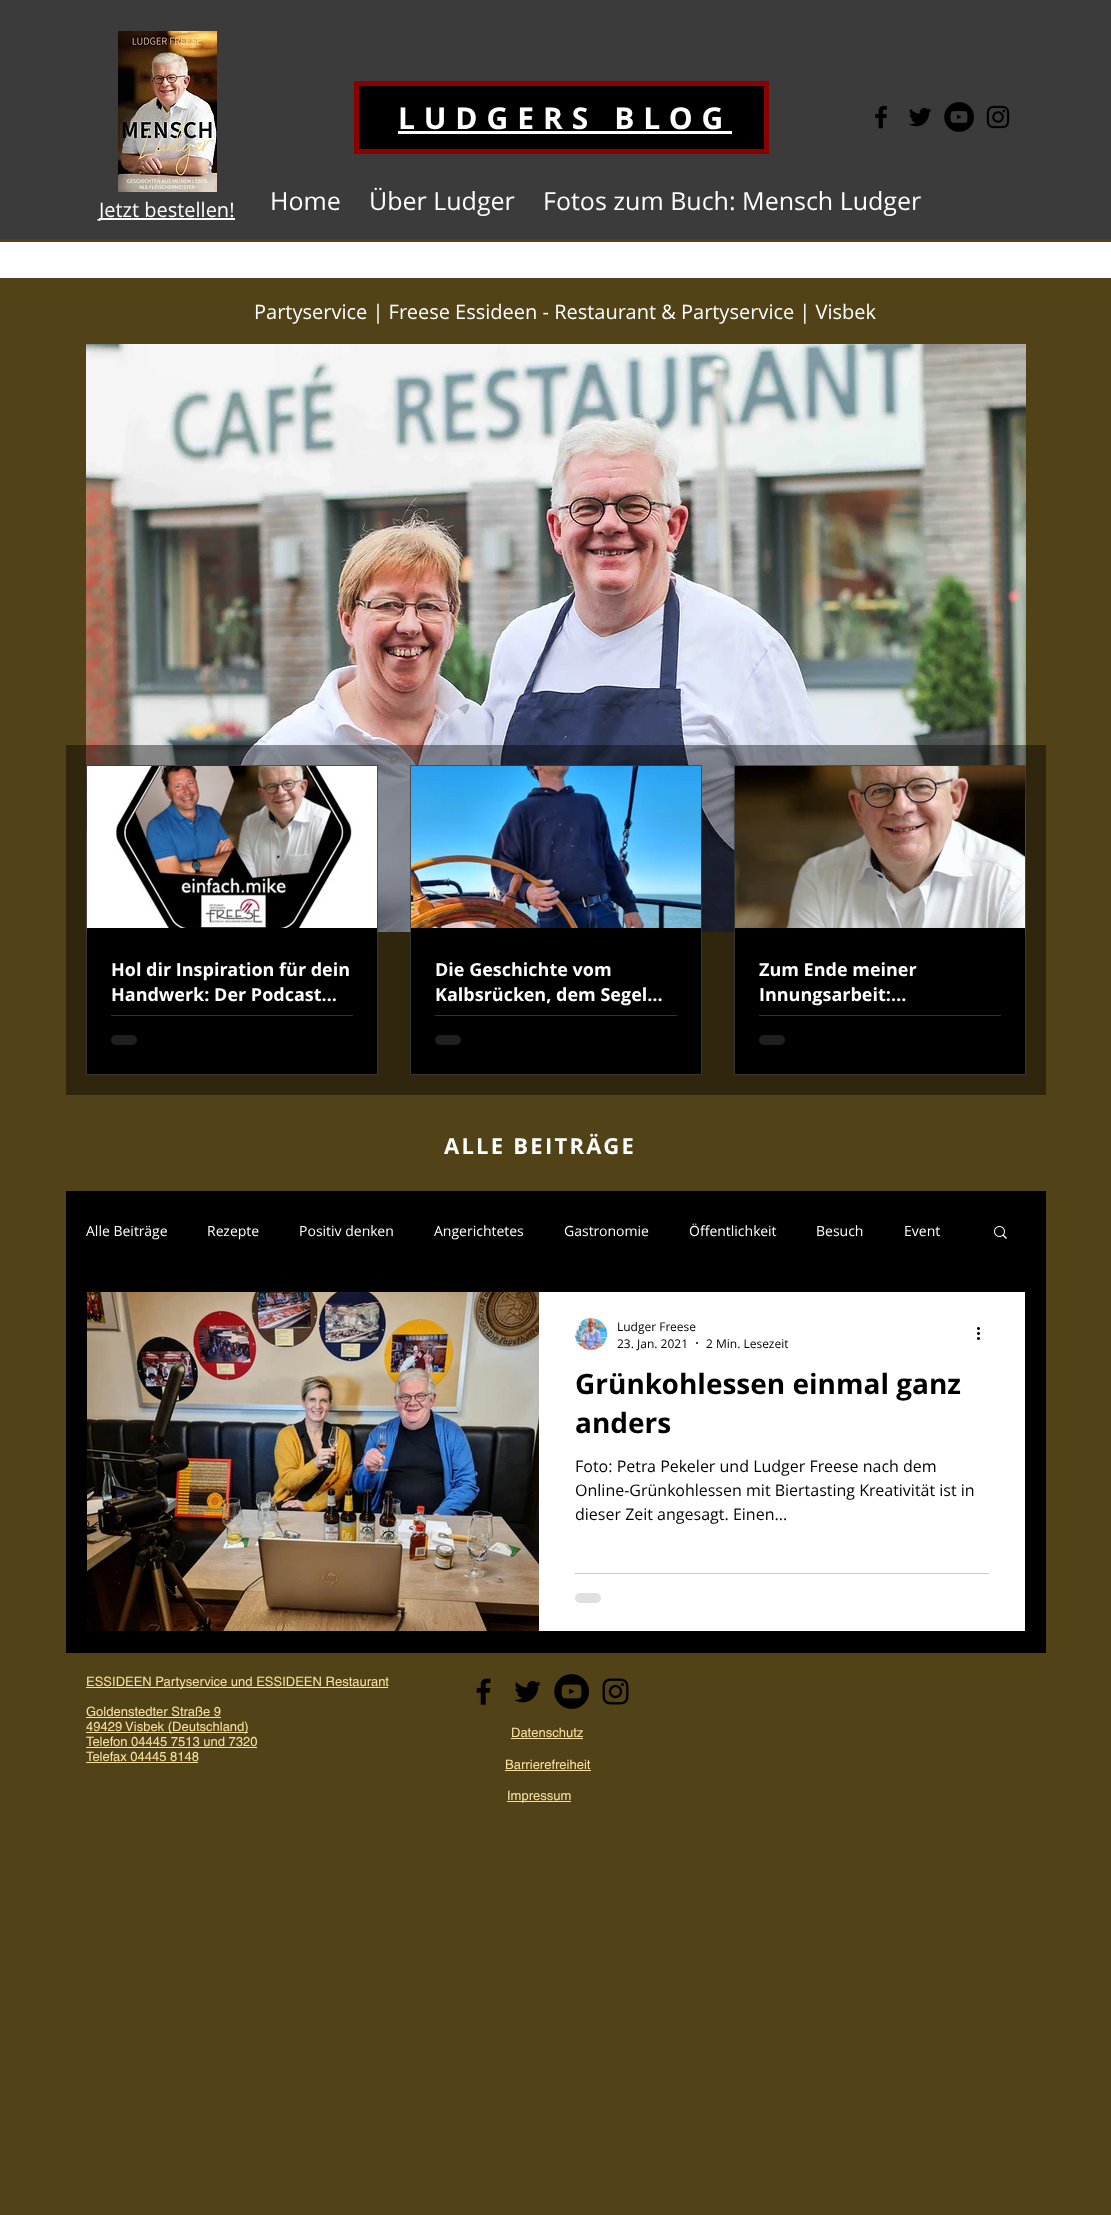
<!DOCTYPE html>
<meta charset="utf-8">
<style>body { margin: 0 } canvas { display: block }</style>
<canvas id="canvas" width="1111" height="2215"></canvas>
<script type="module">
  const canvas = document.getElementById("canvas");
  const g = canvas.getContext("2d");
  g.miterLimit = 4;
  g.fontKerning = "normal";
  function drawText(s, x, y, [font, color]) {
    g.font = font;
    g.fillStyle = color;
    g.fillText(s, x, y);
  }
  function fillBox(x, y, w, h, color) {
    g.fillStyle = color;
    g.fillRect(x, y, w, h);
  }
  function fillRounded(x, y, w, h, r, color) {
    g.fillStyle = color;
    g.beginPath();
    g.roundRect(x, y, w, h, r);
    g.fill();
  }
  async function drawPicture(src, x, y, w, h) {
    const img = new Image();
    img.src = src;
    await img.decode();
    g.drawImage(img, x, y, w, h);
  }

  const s1 = ["bold 30px Open Sans", "#FFFFFF"];
  const s2 = ["20px Open Sans", "#FFFFFF"];
  const s3 = ["25px Open Sans", "#FFFFFF"];
  const s4 = ["bold 18px Open Sans", "#FFFFFF"];
  const s5 = ["bold 22px Open Sans", "#FFFFFF"];
  const s6 = ["14px Open Sans", "#FFFFFF"];
  const s7 = ["12px Open Sans", "#000000"];
  const s8 = ["bold 28px Open Sans", "#000000"];
  const s9 = ["16px Open Sans", "#000000"];
  const s10 = ["13px helvetica", "#F8E19F"];

  fillBox(0, 0, 1111, 2215, "#524217");
  fillBox(0, 0, 1111, 239, "#3B3B3B");
  await drawPicture("pic1.png", 118, 31, 99, 161);
  g.fillStyle = "#000000";
  g.beginPath();
  g.rect(356.5, 83.5, 410, 68);
  g.fill();
  g.strokeStyle = "#8B0000";
  g.lineWidth = 5;
  g.stroke();
  g.letterSpacing = "9px";
  drawText("LUDGERS BLOG", 398, 129, s1);
  fillBox(398, 131, 334, 3, "#FFFFFF");
  await drawPicture("pic2.png", 875, 105, 12, 24);
  await drawPicture("pic3.png", 909, 107, 23, 20);
  await drawPicture("pic4.png", 944, 102, 30, 30);
  await drawPicture("pic5.png", 986, 105, 24, 24);
  fillBox(99, 218, 136, 2, "#FFFFFF");
  g.letterSpacing = "0px";
  drawText("Jetzt bestellen!", 99, 217, s2);
  drawText("Home", 270, 210, s3);
  drawText("Über Ludger", 369, 210, s3);
  drawText("Fotos zum Buch: Mensch Ludger", 543, 210, s3);
  fillBox(0, 242, 1111, 36, "#FFFFFF");
  drawText("Partyservice | Freese Essideen - Restaurant & Partyservice | Visbek", 254, 319, s2);
  await drawPicture("pic6.png", 86, 344, 940, 588);
  fillBox(66, 745, 980, 350, "rgba(0, 0, 0, 0.41)");
  g.strokeStyle = "rgba(59, 59, 59, 0.75)";
  g.lineWidth = 1;
  g.strokeRect(86.5, 765.5, 291, 309);
  await drawPicture("pic7.png", 87, 766, 290, 162);
  fillBox(87, 928, 290, 146, "#000000");
  drawText("Hol dir Inspiration für dein", 111, 976, s4);
  drawText("Handwerk: Der Podcast…", 111, 1001, s4);
  fillBox(111, 1015, 242, 1, "#333333");
  fillRounded(111, 1035, 26, 10, 5, "#1F1F1F");
  g.strokeRect(410.5, 765.5, 291, 309);
  await drawPicture("pic8.png", 411, 766, 290, 162);
  fillBox(411, 928, 290, 146, "#000000");
  drawText("Die Geschichte vom", 435, 976, s4);
  drawText("Kalbsrücken, dem Segel…", 435, 1001, s4);
  fillBox(435, 1015, 242, 1, "#333333");
  fillRounded(435, 1035, 26, 10, 5, "#1F1F1F");
  g.strokeRect(734.5, 765.5, 291, 309);
  await drawPicture("pic9.png", 735, 766, 290, 162);
  fillBox(735, 928, 290, 146, "#000000");
  drawText("Zum Ende meiner", 759, 976, s4);
  drawText("Innungsarbeit:…", 759, 1001, s4);
  fillBox(759, 1015, 242, 1, "#333333");
  fillRounded(759, 1035, 26, 10, 5, "#1F1F1F");
  g.letterSpacing = "2.25px";
  drawText("ALLE BEITRÄGE", 444, 1154, s5);
  fillBox(66, 1191, 980, 462, "#000000");
  g.letterSpacing = "0px";
  drawText("Alle Beiträge", 86, 1236, s6);
  drawText("Rezepte", 207, 1236, s6);
  drawText("Positiv denken", 299, 1236, s6);
  drawText("Angerichtetes", 434, 1236, s6);
  drawText("Gastronomie", 564, 1236, s6);
  drawText("Öffentlichkeit", 689, 1236, s6);
  drawText("Besuch", 816, 1236, s6);
  drawText("Event", 904, 1236, s6);
  await drawPicture("pic10.png", 994, 1226, 13, 13);
  await drawPicture("pic11.png", 87, 1292, 452, 339);
  fillBox(539, 1292, 486, 339, "#FFFFFF");
  await drawPicture("pic12.png", 575, 1318, 32, 32);
  drawText("Ludger Freese", 617, 1331, s7);
  drawText("23. Jan. 2021", 617, 1348, s7);
  g.beginPath();
  g.arc(697, 1343, 1, 0, Math.PI * 2);
  g.fill();
  drawText("2 Min. Lesezeit", 706, 1348, s7);
  await drawPicture("pic13.png", 977, 1327, 3, 13);
  drawText("Grünkohlessen einmal ganz", 575, 1394, s8);
  drawText("anders", 575, 1433, s8);
  drawText("Foto: Petra Pekeler und Ludger Freese nach dem", 575, 1472, s9);
  drawText("Online-Grünkohlessen mit Biertasting Kreativität ist in", 575, 1496, s9);
  drawText("dieser Zeit angesagt. Einen...", 575, 1520, s9);
  fillBox(575, 1573, 414, 1, "#CCCCCC");
  fillRounded(575, 1593, 26, 10, 5, "#E0E0E0");
  fillBox(86, 1687, 302, 1, "#F8E19F");
  drawText("ESSIDEEN Partyservice und ESSIDEEN Restaurant", 86, 1686, s10);
  drawText("Goldenstedter Straße 9", 86, 1716, s10);
  fillBox(86, 1717, 135, 1, "#F8E19F");
  fillBox(86, 1732, 162, 1, "#F8E19F");
  drawText("49429 Visbek (Deutschland)", 86, 1731, s10);
  drawText("Telefon 04445 7513 und 7320", 86, 1746, s10);
  fillBox(86, 1747, 171, 1, "#F8E19F");
  drawText("Telefax 04445 8148", 86, 1761, s10);
  fillBox(86, 1762, 112, 1, "#F8E19F");
  await drawPicture("pic14.png", 476, 1678, 15, 27);
  await drawPicture("pic15.png", 514, 1680, 27, 23);
  await drawPicture("pic16.png", 554, 1674, 35, 35);
  await drawPicture("pic17.png", 602, 1678, 27, 27);
  drawText("Datenschutz", 511, 1737, s10);
  fillBox(511, 1738, 72, 1, "#F8E19F");
  drawText("Barrierefreiheit", 505, 1769, s10);
  fillBox(505, 1770, 86, 1, "#F8E19F");
  fillBox(507, 1801, 64, 1, "#F8E19F");
  drawText("Impressum", 507, 1800, s10);
</script>
